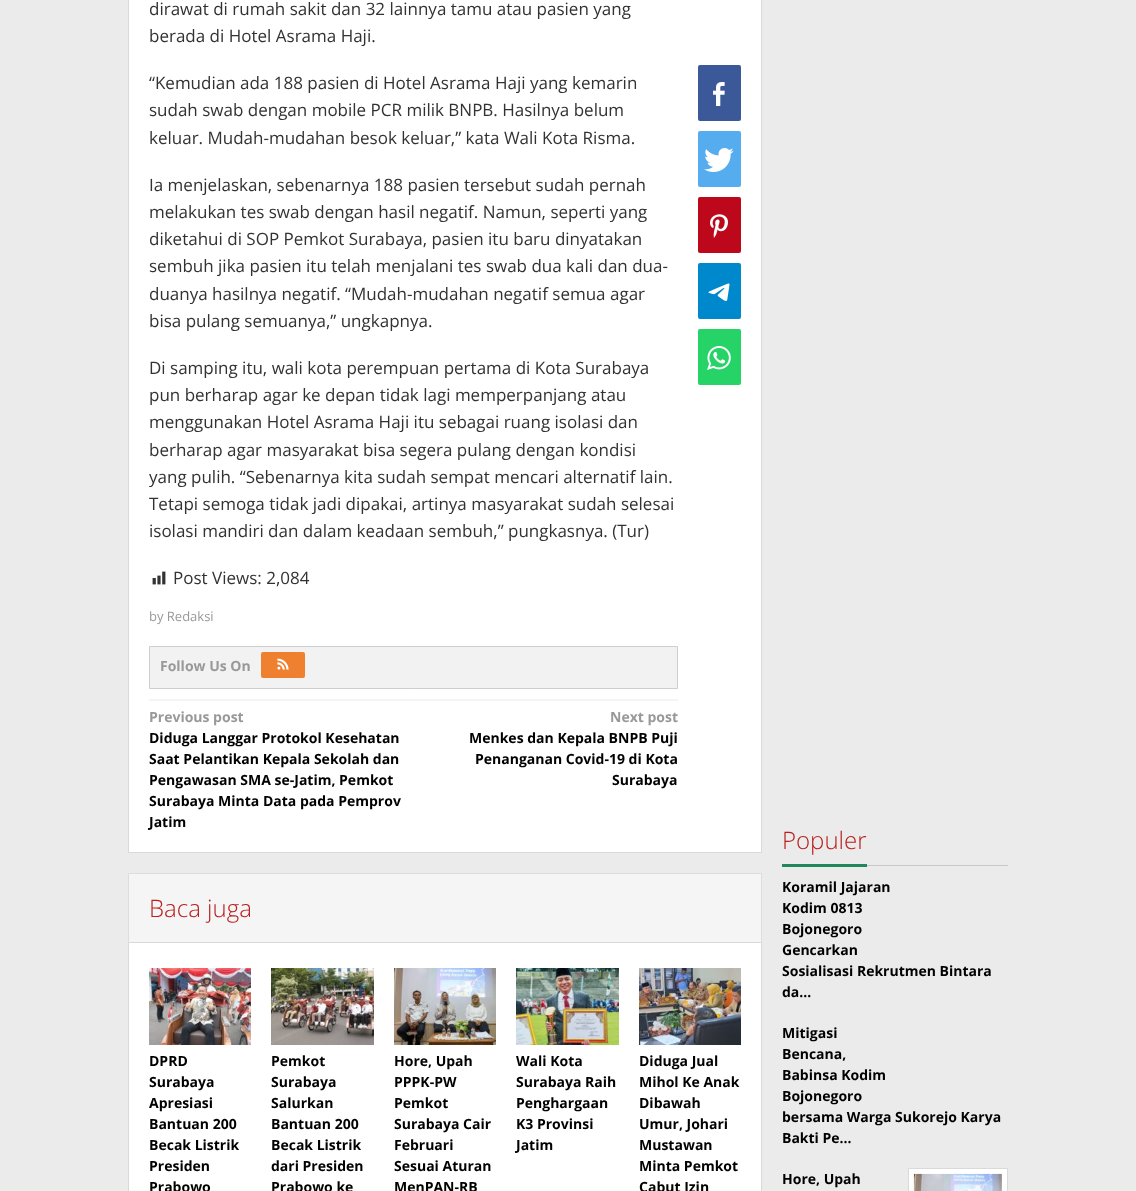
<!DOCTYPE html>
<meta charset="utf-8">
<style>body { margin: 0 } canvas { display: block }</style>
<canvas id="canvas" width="1136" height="1191"></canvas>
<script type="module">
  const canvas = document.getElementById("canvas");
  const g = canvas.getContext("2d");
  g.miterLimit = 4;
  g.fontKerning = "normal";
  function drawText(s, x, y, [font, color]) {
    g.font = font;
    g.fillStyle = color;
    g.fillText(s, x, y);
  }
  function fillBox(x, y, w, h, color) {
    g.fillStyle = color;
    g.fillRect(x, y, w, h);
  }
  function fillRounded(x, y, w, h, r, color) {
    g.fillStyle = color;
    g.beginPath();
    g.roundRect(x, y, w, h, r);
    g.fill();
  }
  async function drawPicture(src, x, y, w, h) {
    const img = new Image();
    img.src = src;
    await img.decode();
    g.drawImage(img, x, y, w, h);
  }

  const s1 = ["17px Open Sans", "#323233"];
  const s2 = ["13px Open Sans", "#999999"];
  const s3 = ["bold 14px Open Sans", "#999999"];
  const s4 = ["bold 14px Open Sans", "#000000"];
  const s5 = ["300 24px Open Sans", "#B9201F"];

  fillBox(0, 0, 1136, 1191, "#EBEBEB");
  g.fillStyle = "#FFFFFF";
  g.beginPath();
  g.rect(128.5, -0.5, 633, 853);
  g.fill();
  g.strokeStyle = "#D9D9D9";
  g.stroke();
  drawText("dirawat di rumah sakit dan 32 lainnya tamu atau pasien yang", 149, 15, s1);
  drawText("berada di Hotel Asrama Haji.", 149, 42, s1);
  drawText("“Kemudian ada 188 pasien di Hotel Asrama Haji yang kemarin", 149, 89, s1);
  drawText("sudah swab dengan mobile PCR milik BNPB. Hasilnya belum", 149, 116, s1);
  drawText("keluar. Mudah-mudahan besok keluar,” kata Wali Kota Risma.", 149, 144, s1);
  drawText("Ia menjelaskan, sebenarnya 188 pasien tersebut sudah pernah", 149, 191, s1);
  drawText("melakukan tes swab dengan hasil negatif. Namun, seperti yang", 149, 218, s1);
  drawText("diketahui di SOP Pemkot Surabaya, pasien itu baru dinyatakan", 149, 245, s1);
  drawText("sembuh jika pasien itu telah menjalani tes swab dua kali dan dua-", 149, 272, s1);
  drawText("duanya hasilnya negatif. “Mudah-mudahan negatif semua agar", 149, 300, s1);
  drawText("bisa pulang semuanya,” ungkapnya.", 149, 327, s1);
  drawText("Di samping itu, wali kota perempuan pertama di Kota Surabaya", 149, 374, s1);
  drawText("pun berharap agar ke depan tidak lagi memperpanjang atau", 149, 401, s1);
  drawText("menggunakan Hotel Asrama Haji itu sebagai ruang isolasi dan", 149, 428, s1);
  drawText("berharap agar masyarakat bisa segera pulang dengan kondisi", 149, 456, s1);
  drawText("yang pulih. “Sebenarnya kita sudah sempat mencari alternatif lain.", 149, 483, s1);
  drawText("Tetapi semoga tidak jadi dipakai, artinya masyarakat sudah selesai", 149, 510, s1);
  drawText("isolasi mandiri dan dalam keadaan sembuh,” pungkasnya. (Tur)", 149, 537, s1);
  await drawPicture("pic1.png", 152, 571, 14, 14);
  drawText("Post Views: 2,084", 173, 584, s1);
  drawText("by Redaksi", 149, 621, s2);
  g.fillStyle = "#F2F2F2";
  g.beginPath();
  g.rect(149.5, 646.5, 528, 42);
  g.fill();
  g.strokeStyle = "#CECECE";
  g.stroke();
  drawText("Follow Us On", 160, 671, s3);
  fillRounded(261, 652, 44, 26, 2, "#EE802F");
  await drawPicture("pic2.png", 277, 658, 12, 12);
  fillBox(149, 699, 529, 2, "#F6F4F1");
  drawText("Previous post", 149, 722, s3);
  drawText("Diduga Langgar Protokol Kesehatan", 149, 743, s4);
  drawText("Saat Pelantikan Kepala Sekolah dan", 149, 764, s4);
  drawText("Pengawasan SMA se-Jatim, Pemkot", 149, 785, s4);
  drawText("Surabaya Minta Data pada Pemprov", 149, 806, s4);
  drawText("Jatim", 149, 827, s4);
  drawText("Next post", 610, 722, s3);
  drawText("Menkes dan Kepala BNPB Puji", 469, 743, s4);
  drawText("Penanganan Covid-19 di Kota", 475, 764, s4);
  drawText("Surabaya", 612, 785, s4);
  fillRounded(698, 65, 43, 56, 2, "#3B5998");
  await drawPicture("pic3.png", 713, 82, 12, 24);
  fillRounded(698, 131, 43, 56, 2, "#55ACEE");
  await drawPicture("pic4.png", 704, 148, 30, 24);
  fillRounded(698, 197, 43, 56, 2, "#BD081C");
  await drawPicture("pic5.png", 710, 214, 18, 24);
  fillRounded(698, 263, 43, 56, 2, "#0088CC");
  await drawPicture("pic6.png", 708, 283, 22, 18);
  fillRounded(698, 329, 43, 56, 2, "#25D366");
  await drawPicture("pic7.png", 707, 346, 24, 24);
  g.fillStyle = "#F5F5F5";
  g.beginPath();
  g.rect(128.5, 873.5, 633, 69);
  g.fill();
  g.strokeStyle = "#DDDDDD";
  g.stroke();
  drawText("Baca juga", 149, 917, s5);
  g.fillStyle = "#FFFFFF";
  g.beginPath();
  g.rect(128.5, 942.5, 633, 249);
  g.fill();
  g.strokeStyle = "#D9D9D9";
  g.stroke();
  await drawPicture("pic8.png", 149, 968, 102, 77);
  drawText("DPRD", 149, 1066, s4);
  drawText("Surabaya", 149, 1087, s4);
  drawText("Apresiasi", 149, 1108, s4);
  drawText("Bantuan 200", 149, 1129, s4);
  drawText("Becak Listrik", 149, 1150, s4);
  drawText("Presiden", 149, 1171, s4);
  drawText("Prabowo", 149, 1192, s4);
  await drawPicture("pic9.png", 271, 968, 103, 77);
  drawText("Pemkot", 271, 1066, s4);
  drawText("Surabaya", 271, 1087, s4);
  drawText("Salurkan", 271, 1108, s4);
  drawText("Bantuan 200", 271, 1129, s4);
  drawText("Becak Listrik", 271, 1150, s4);
  drawText("dari Presiden", 271, 1171, s4);
  drawText("Prabowo ke", 271, 1192, s4);
  await drawPicture("pic10.png", 394, 968, 102, 77);
  drawText("Hore, Upah", 394, 1066, s4);
  drawText("PPPK-PW", 394, 1087, s4);
  drawText("Pemkot", 394, 1108, s4);
  drawText("Surabaya Cair", 394, 1129, s4);
  drawText("Februari", 394, 1150, s4);
  drawText("Sesuai Aturan", 394, 1171, s4);
  drawText("MenPAN-RB", 394, 1192, s4);
  await drawPicture("pic11.png", 516, 968, 103, 77);
  drawText("Wali Kota", 516, 1066, s4);
  drawText("Surabaya Raih", 516, 1087, s4);
  drawText("Penghargaan", 516, 1108, s4);
  drawText("K3 Provinsi", 516, 1129, s4);
  drawText("Jatim", 516, 1150, s4);
  await drawPicture("pic12.png", 639, 968, 102, 77);
  drawText("Diduga Jual", 639, 1066, s4);
  drawText("Mihol Ke Anak", 639, 1087, s4);
  drawText("Dibawah", 639, 1108, s4);
  drawText("Umur, Johari", 639, 1129, s4);
  drawText("Mustawan", 639, 1150, s4);
  drawText("Minta Pemkot", 639, 1171, s4);
  drawText("Cabut Izin", 639, 1192, s4);
  fillBox(867, 865, 141, 1, "#C8C8C8");
  fillBox(782, 864, 85, 3, "#22885C");
  drawText("Populer", 782, 849, s5);
  drawText("Koramil Jajaran", 782, 892, s4);
  drawText("Kodim 0813", 782, 913, s4);
  drawText("Bojonegoro", 782, 934, s4);
  drawText("Gencarkan", 782, 955, s4);
  drawText("Sosialisasi Rekrutmen Bintara", 782, 976, s4);
  drawText("da…", 782, 997, s4);
  drawText("Mitigasi", 782, 1038, s4);
  drawText("Bencana,", 782, 1059, s4);
  drawText("Babinsa Kodim", 782, 1080, s4);
  drawText("Bojonegoro", 782, 1101, s4);
  drawText("bersama Warga Sukorejo Karya", 782, 1122, s4);
  drawText("Bakti Pe…", 782, 1143, s4);
  drawText("Hore, Upah", 782, 1184, s4);
  g.fillStyle = "#FFFFFF";
  g.beginPath();
  g.rect(908.5, 1168.5, 99, 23);
  g.fill();
  g.stroke();
  await drawPicture("pic13.png", 913, 1173, 89, 18);
</script>
